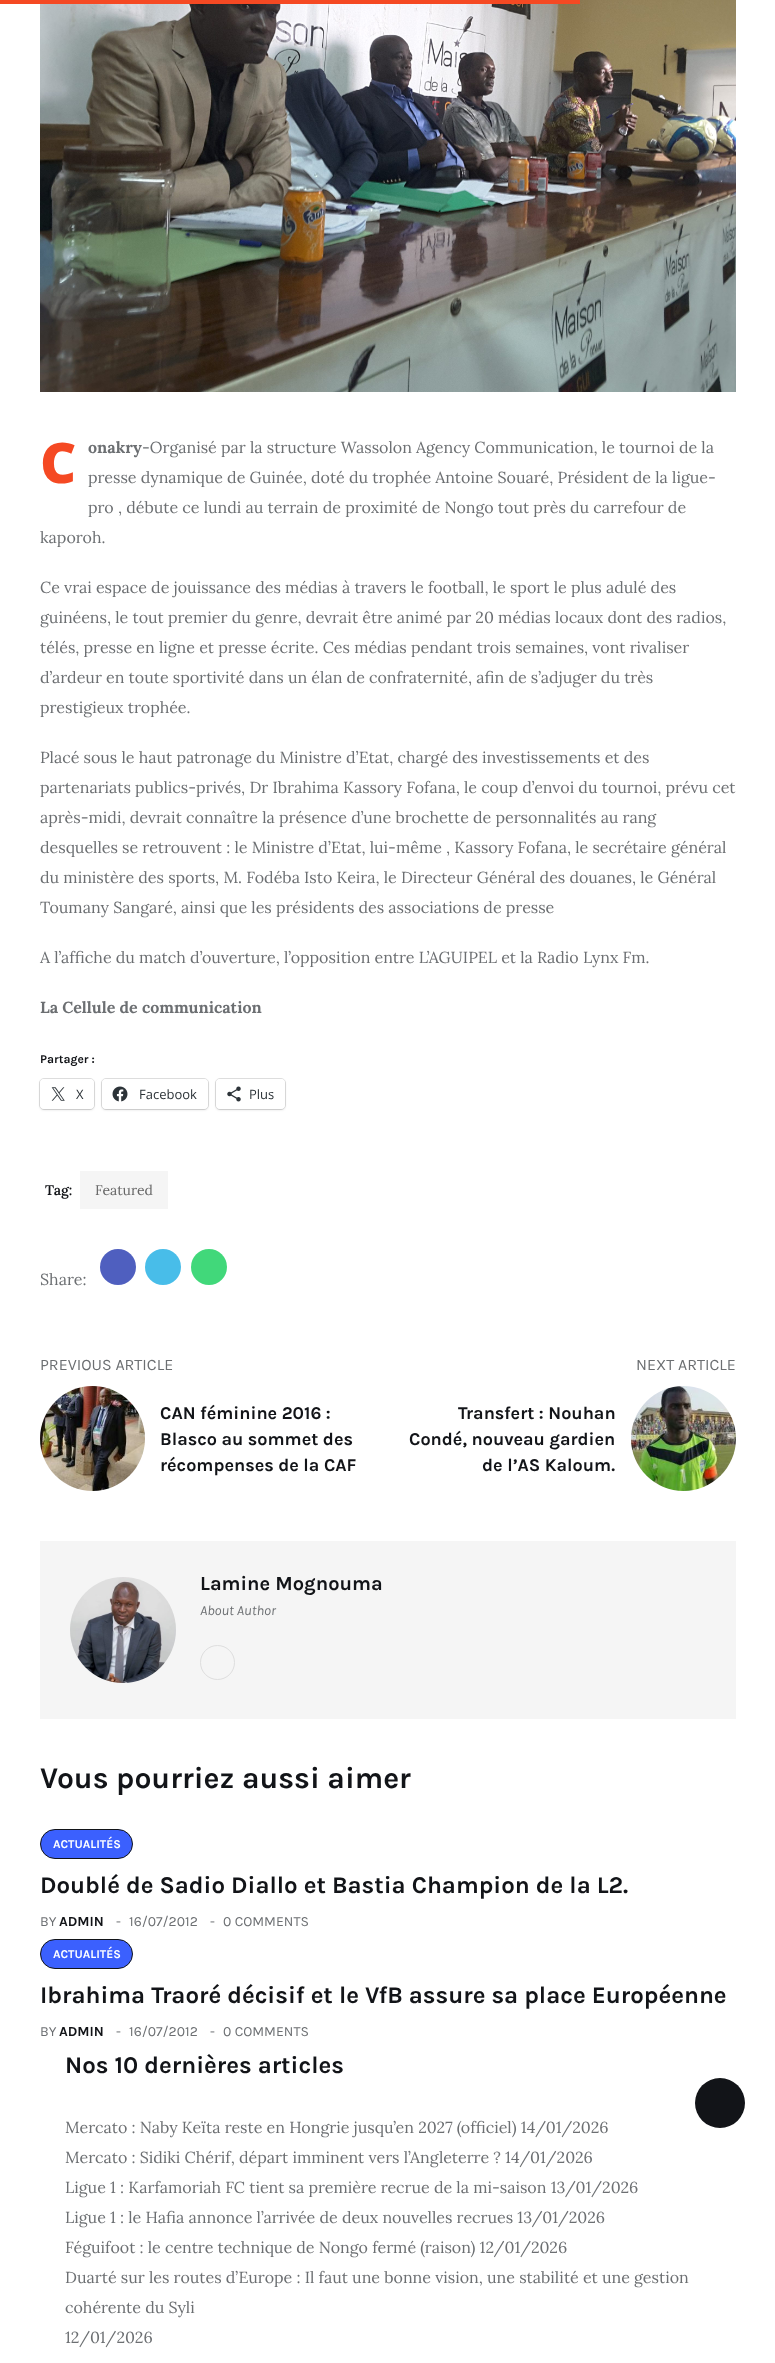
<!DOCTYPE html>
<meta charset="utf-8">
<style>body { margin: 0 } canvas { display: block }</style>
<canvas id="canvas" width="775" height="2363"></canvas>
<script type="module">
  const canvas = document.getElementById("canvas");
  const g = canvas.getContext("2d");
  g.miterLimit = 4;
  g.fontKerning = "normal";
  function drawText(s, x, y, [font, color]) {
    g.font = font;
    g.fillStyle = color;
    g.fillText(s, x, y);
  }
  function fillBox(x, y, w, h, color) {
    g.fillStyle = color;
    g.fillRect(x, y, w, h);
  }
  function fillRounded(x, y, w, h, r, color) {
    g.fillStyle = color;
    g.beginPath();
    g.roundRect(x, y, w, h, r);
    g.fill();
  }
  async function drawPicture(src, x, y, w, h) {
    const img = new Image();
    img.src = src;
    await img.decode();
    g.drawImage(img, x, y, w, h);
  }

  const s1 = ["900 56px Noto Sans", "#F54923"];
  const s2 = ["bold 16px Lora", "#6C6F72"];
  const s3 = ["16px Lora", "#6C6F72"];
  const s4 = ["bold 12px Karla", "#121418"];
  const s5 = ["13px Open Sans", "#2C3338"];
  const s6 = ["600 14px Lora", "#121418"];
  const s7 = ["14px Lora", "#666666"];
  const s8 = ["16px Karla", "#6C6F72"];
  const s9 = ["bold 18px Karla", "#121418"];
  const s10 = ["bold 20px Karla", "#121418"];
  const s11 = ["italic 14px Karla", "#6C6F72"];
  const s12 = ["bold 30px Karla", "#121418"];
  const s13 = ["bold 12px Karla", "#FFFFFF"];
  const s14 = ["bold 24px Karla", "#121418"];
  const s15 = ["14px Karla", "#6C6F72"];
  const s16 = ["bold 14px Karla", "#121418"];

  fillBox(0, 0, 775, 2363, "#FFFFFF");
  await drawPicture("pic1.png", 40, 0, 696, 392);
  fillBox(0, 0, 580, 4, "#F54923");
  drawText("C", 40, 483, s1);
  drawText("onakry", 88, 453, s2);
  drawText("-Organisé par la structure Wassolon Agency Communication, le tournoi de la", 142, 453, s3);
  drawText("presse dynamique de Guinée, doté du trophée Antoine Souaré, Président de la ligue-", 88, 483, s3);
  drawText("pro , débute ce lundi au terrain de proximité de Nongo tout près du carrefour de", 88, 513, s3);
  drawText("kaporoh.", 40, 543, s3);
  drawText("Ce vrai espace de jouissance des médias à travers le football, le sport le plus adulé des", 40, 593, s3);
  drawText("guinéens, le tout premier du genre, devrait être animé par 20 médias locaux dont des radios,", 40, 623, s3);
  drawText("télés, presse en ligne et presse écrite. Ces médias pendant trois semaines, vont rivaliser", 40, 653, s3);
  drawText("d’ardeur en toute sportivité dans un élan de confraternité, afin de s’adjuger du très", 40, 683, s3);
  drawText("prestigieux trophée.", 40, 713, s3);
  drawText("Placé sous le haut patronage du Ministre d’Etat, chargé des investissements et des", 40, 763, s3);
  drawText("partenariats publics-privés, Dr Ibrahima Kassory Fofana, le coup d’envoi du tournoi, prévu cet", 40, 793, s3);
  drawText("après-midi, devrait connaître la présence d’une brochette de personnalités au rang", 40, 823, s3);
  drawText("desquelles se retrouvent : le Ministre d’Etat, lui-même , Kassory Fofana, le secrétaire général", 40, 853, s3);
  drawText("du ministère des sports, M. Fodéba Isto Keira, le Directeur Général des douanes, le Général", 40, 883, s3);
  drawText("Toumany Sangaré, ainsi que les présidents des associations de presse", 40, 913, s3);
  drawText("A l’affiche du match d’ouverture, l’opposition entre L’AGUIPEL et la Radio Lynx Fm.", 40, 963, s3);
  drawText("La Cellule de communication", 40, 1013, s2);
  drawText("Partager :", 40, 1063, s4);
  g.beginPath();
  g.roundRect(39.5, 1078.5, 55, 31, 4.5);
  g.strokeStyle = "#E0E0E0";
  g.stroke();
  g.fillStyle = "rgba(0, 0, 0, 0.12)";
  g.filter = "blur(1px)";
  g.beginPath();
  g.roundRect(40, 1080, 54, 30, 4);
  g.fill();
  g.filter = "none";
  fillRounded(40, 1079, 54, 30, 4, "#FFFFFF");
  await drawPicture("pic2.png", 51, 1087, 14, 14);
  drawText("X", 76, 1099, s5);
  g.beginPath();
  g.roundRect(101.5, 1078.5, 107, 31, 4.5);
  g.stroke();
  g.fillStyle = "rgba(0, 0, 0, 0.12)";
  g.filter = "blur(1px)";
  g.beginPath();
  g.roundRect(102, 1080, 106, 30, 4);
  g.fill();
  g.filter = "none";
  fillRounded(102, 1079, 106, 30, 4, "#FFFFFF");
  await drawPicture("pic3.png", 112, 1086, 16, 16);
  drawText("Facebook", 139, 1099, s5);
  g.beginPath();
  g.roundRect(215.5, 1078.5, 70, 31, 4.5);
  g.stroke();
  g.fillStyle = "rgba(0, 0, 0, 0.12)";
  g.filter = "blur(1px)";
  g.beginPath();
  g.roundRect(216, 1080, 69, 30, 4);
  g.fill();
  g.filter = "none";
  fillRounded(216, 1079, 69, 30, 4, "#FFFFFF");
  await drawPicture("pic4.png", 227, 1086, 14, 16);
  drawText("Plus", 249, 1099, s5);
  drawText("Tag:", 45, 1195, s6);
  fillBox(80, 1171, 88, 38, "#F5F5F5");
  drawText("Featured", 95, 1195, s7);
  drawText("Share:", 40, 1285, s3);
  g.fillStyle = "#4F5FBF";
  g.beginPath();
  g.arc(118, 1267, 18, 0, Math.PI * 2);
  g.fill();
  g.fillStyle = "#48BDE9";
  g.beginPath();
  g.arc(163, 1267, 18, 0, Math.PI * 2);
  g.fill();
  g.fillStyle = "#41D87A";
  g.beginPath();
  g.arc(209, 1267, 18, 0, Math.PI * 2);
  g.fill();
  drawText("PREVIOUS ARTICLE", 40, 1370, s8);
  await drawPicture("pic5.png", 40, 1386, 105, 105);
  drawText("CAN féminine 2016 :", 160, 1419, s9);
  drawText("Blasco au sommet des", 160, 1445, s9);
  drawText("récompenses de la CAF", 160, 1471, s9);
  drawText("NEXT ARTICLE", 636, 1370, s8);
  drawText("Transfert : Nouhan", 458, 1419, s9);
  drawText("Condé, nouveau gardien", 409, 1445, s9);
  drawText("de l’AS Kaloum.", 482, 1471, s9);
  await drawPicture("pic6.png", 631, 1386, 105, 105);
  fillBox(40, 1541, 696, 178, "#F5F5F5");
  await drawPicture("pic7.png", 70, 1577, 106, 106);
  drawText("Lamine Mognouma", 200, 1590, s10);
  drawText("About Author", 200, 1615, s11);
  g.beginPath();
  g.arc(217.5, 1662.5, 17, 0, Math.PI * 2);
  g.strokeStyle = "#DEDEDE";
  g.stroke();
  drawText("Vous pourriez aussi aimer", 40, 1788, s12);
  g.fillStyle = "#3B60FE";
  g.beginPath();
  g.roundRect(40.5, 1829.5, 92, 29, 14.5);
  g.fill();
  g.strokeStyle = "#121418";
  g.stroke();
  drawText("ACTUALITÉS", 53, 1848, s13);
  drawText("Doublé de Sadio Diallo et Bastia Champion de la L2.", 40, 1893, s14);
  drawText("BY", 40, 1926, s15);
  drawText("ADMIN", 59, 1926, s16);
  drawText("-", 116, 1926, s15);
  drawText("16/07/2012", 129, 1926, s15);
  drawText("-", 210, 1926, s15);
  drawText("0 COMMENTS", 223, 1926, s15);
  g.fillStyle = "#3B60FE";
  g.beginPath();
  g.roundRect(40.5, 1939.5, 92, 29, 14.5);
  g.fill();
  g.stroke();
  drawText("ACTUALITÉS", 53, 1958, s13);
  drawText("Ibrahima Traoré décisif et le VfB assure sa place Européenne", 40, 2003, s14);
  drawText("BY", 40, 2036, s15);
  drawText("ADMIN", 59, 2036, s16);
  drawText("-", 116, 2036, s15);
  drawText("16/07/2012", 129, 2036, s15);
  drawText("-", 210, 2036, s15);
  drawText("0 COMMENTS", 223, 2036, s15);
  drawText("Nos 10 dernières articles", 65, 2073, s14);
  drawText("Mercato : Naby Keïta reste en Hongrie jusqu’en 2027 (officiel) 14/01/2026", 65, 2133, s3);
  drawText("Mercato : Sidiki Chérif, départ imminent vers l’Angleterre ? 14/01/2026", 65, 2163, s3);
  drawText("Ligue 1 : Karfamoriah FC tient sa première recrue de la mi-saison 13/01/2026", 65, 2193, s3);
  drawText("Ligue 1 : le Hafia annonce l’arrivée de deux nouvelles recrues 13/01/2026", 65, 2223, s3);
  drawText("Féguifoot : le centre technique de Nongo fermé (raison) 12/01/2026", 65, 2253, s3);
  drawText("Duarté sur les routes d’Europe : Il faut une bonne vision, une stabilité et une gestion", 65, 2283, s3);
  drawText("cohérente du Syli", 65, 2313, s3);
  drawText("12/01/2026", 65, 2343, s3);
  g.fillStyle = "#121418";
  g.beginPath();
  g.arc(720, 2103, 25, 0, Math.PI * 2);
  g.fill();
</script>
